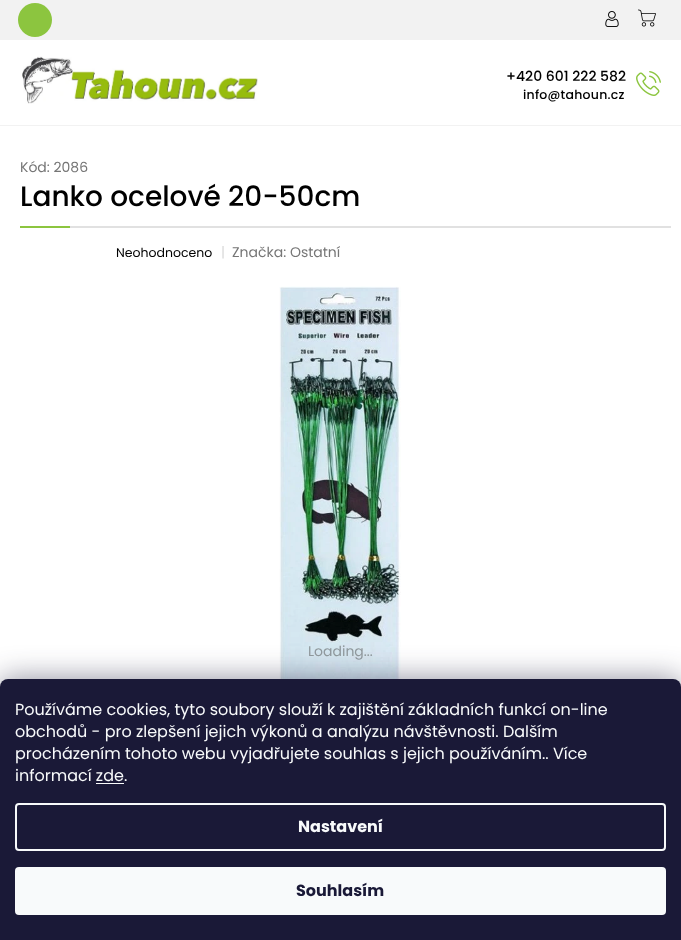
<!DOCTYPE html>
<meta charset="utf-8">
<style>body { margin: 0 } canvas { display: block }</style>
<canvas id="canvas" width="681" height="940"></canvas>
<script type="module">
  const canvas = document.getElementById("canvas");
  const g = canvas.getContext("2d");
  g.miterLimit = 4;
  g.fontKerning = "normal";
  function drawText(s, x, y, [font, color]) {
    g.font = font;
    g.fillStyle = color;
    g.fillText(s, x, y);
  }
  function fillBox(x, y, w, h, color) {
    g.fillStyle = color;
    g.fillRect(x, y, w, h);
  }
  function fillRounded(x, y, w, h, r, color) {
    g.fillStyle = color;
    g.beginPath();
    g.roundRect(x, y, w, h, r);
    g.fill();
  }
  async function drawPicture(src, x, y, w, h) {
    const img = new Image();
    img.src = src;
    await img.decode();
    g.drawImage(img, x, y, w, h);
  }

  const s1 = ["500 14px Poppins", "#000000"];
  const s2 = ["500 12.5px Poppins", "#000000"];
  const s3 = ["14px Poppins", "#767676"];
  const s4 = ["500 28px Poppins", "#000000"];
  const s5 = ["12.5px Poppins", "#000000"];
  const s6 = ["14px Poppins", "#DADADA"];
  const s7 = ["14px Poppins", "#919A9E"];
  const s8 = ["16px Poppins", "#F8FAFB"];
  const s9 = ["bold 16px Poppins", "#F8FAFB"];
  const s10 = ["bold 16px Poppins", "#1A1937"];

  fillBox(0, 0, 681, 940, "#FFFFFF");
  fillBox(0, 0, 681, 40, "#F2F2F2");
  g.fillStyle = "#8CC53F";
  g.beginPath();
  g.arc(35, 20, 17, 0, Math.PI * 2);
  g.fill();
  await drawPicture("pic1.png", 605, 11, 14, 16);
  fillBox(0, 125, 681, 1, "#F2F2F2");
  await drawPicture("pic2.png", 638, 9, 18, 18);
  await drawPicture("pic3.png", 22, 56, 236, 48);
  drawText("+420 601 222 582", 506, 81, s1);
  await drawPicture("pic4.png", 636, 71, 25, 25);
  g.letterSpacing = "0.25px";
  drawText("info@tahoun.cz", 523, 99, s2);
  g.letterSpacing = "0px";
  drawText("Kód: 2086", 20, 172, s3);
  fillBox(70, 226, 601, 2, "#E1E1E1");
  drawText("Lanko ocelové 20-50cm", 20, 206, s4);
  fillBox(20, 226, 50, 2, "#8CC53F");
  drawText("Neohodnoceno", 116, 257, s5);
  drawText("|", 221, 257, s6);
  drawText("Značka: Ostatní", 232, 257, s3);
  await drawPicture("pic5.png", 279, 286, 122, 393);
  drawText("Loading...", 308, 656, s7);
  g.fillStyle = "rgba(27, 25, 57, 0.5)";
  g.filter = "blur(15px)";
  g.beginPath();
  g.roundRect(0, 679, 681, 261, 8);
  g.fill();
  g.filter = "none";
  g.fillStyle = "#1A1937";
  g.beginPath();
  g.roundRect(0, 679, 681, 261, [8, 8, 0, 0]);
  g.fill();
  drawText("Používáme cookies, tyto soubory slouží k zajištění základních funkcí on-line", 15, 715, s8);
  drawText("obchodů - pro zlepšení jejich výkonů a analýzu návštěvnosti. Dalším", 15, 737, s8);
  drawText("procházením tohoto webu vyjadřujete souhlas s jejich používáním.. Více", 15, 759, s8);
  drawText("informací zde.", 15, 781, s8);
  fillBox(96, 783, 28, 1, "#F8FAFB");
  g.beginPath();
  g.roundRect(16, 804, 649, 46, 3);
  g.strokeStyle = "#F8FAFB";
  g.lineWidth = 2;
  g.stroke();
  drawText("Nastavení", 298, 832, s9);
  fillRounded(15, 867, 651, 48, 4, "#F8FAFB");
  drawText("Souhlasím", 296, 896, s10);
</script>
